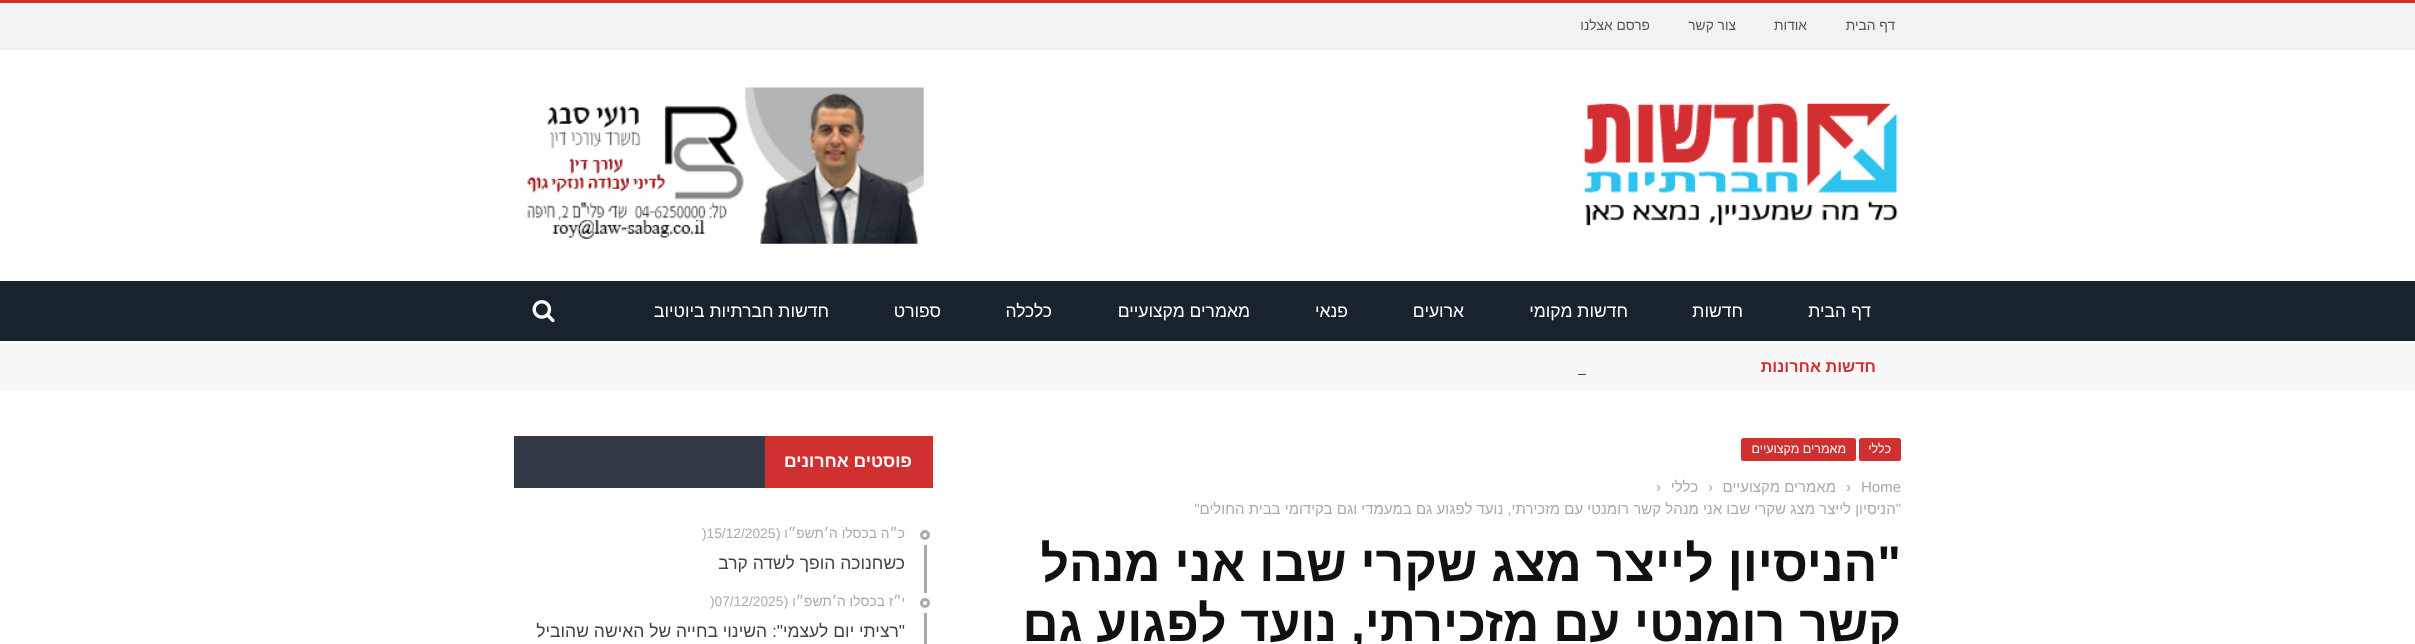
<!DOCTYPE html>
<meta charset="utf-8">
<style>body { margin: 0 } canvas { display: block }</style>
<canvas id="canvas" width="2415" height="644"></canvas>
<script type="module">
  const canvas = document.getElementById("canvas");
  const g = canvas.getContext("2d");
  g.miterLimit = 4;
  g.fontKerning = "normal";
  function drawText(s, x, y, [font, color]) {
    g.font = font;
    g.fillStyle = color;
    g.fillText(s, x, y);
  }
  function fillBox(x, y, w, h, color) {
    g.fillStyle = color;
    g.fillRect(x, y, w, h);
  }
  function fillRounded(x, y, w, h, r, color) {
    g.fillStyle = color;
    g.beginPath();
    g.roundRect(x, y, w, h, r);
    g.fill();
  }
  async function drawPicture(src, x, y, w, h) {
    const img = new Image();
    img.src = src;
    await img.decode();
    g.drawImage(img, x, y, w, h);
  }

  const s1 = ["13.75px Liberation Sans", "#565656"];
  const s2 = ["17.5px Liberation Sans", "#FFFFFF"];
  const s3 = ["bold 16.25px Liberation Sans", "#D13030"];
  const s4 = ["12.5px Liberation Sans", "#FFFFFF"];
  const s5 = ["15px Liberation Sans", "#AAAAAA"];
  const s6 = ["bold 50px Liberation Sans", "#111111"];
  const s7 = ["bold 17.5px Liberation Sans", "#FFFFFF"];
  const s8 = ["13.75px Liberation Sans", "#AAAAAA"];
  const s9 = ["17.5px Liberation Sans", "#444444"];

  fillBox(0, 0, 2415, 644, "#FFFFFF");
  fillBox(0, 3, 2415, 46, "#F2F2F2");
  fillBox(0, 0, 2415, 3, "#D13030");
  fillBox(0, 49, 2415, 1, "#EEEEEE");
  g.direction = "rtl";
  drawText("דף הבית", 1895, 30, s1);
  drawText("אודות", 1807, 30, s1);
  drawText("צור קשר", 1736, 30, s1);
  drawText("פרסם אצלנו", 1650, 30, s1);
  await drawPicture("pic1.png", 1583, 103, 315, 123);
  await drawPicture("pic2.png", 527, 87, 397, 157);
  fillBox(0, 281, 2415, 60, "#19232D");
  drawText("דף הבית", 1871, 317, s2);
  drawText("חדשות", 1743, 317, s2);
  drawText("חדשות מקומי", 1628, 317, s2);
  drawText("ארועים", 1464, 317, s2);
  drawText("פנאי", 1348, 317, s2);
  drawText("מאמרים מקצועיים", 1250, 317, s2);
  drawText("כלכלה", 1052, 317, s2);
  drawText("ספורט", 941, 317, s2);
  drawText("חדשות חברתיות ביוטיוב", 829, 317, s2);
  await drawPicture("pic3.png", 532, 300, 23, 23);
  fillBox(0, 341, 2415, 50, "#F8F8F8");
  drawText("חדשות אחרונות", 1876, 372, s3);
  fillBox(1578, 374, 8, 1, "#1F527B");
  fillRounded(1859, 438, 42, 23, 2.5, "#D13030");
  drawText("כללי", 1891, 453, s4);
  fillRounded(1741, 438, 115, 23, 2.5, "#D13030");
  drawText("מאמרים מקצועיים", 1846, 453, s4);
  g.direction = "ltr";
  drawText("Home", 1861, 492, s5);
  drawText("›", 1846, 492, s5);
  g.direction = "rtl";
  drawText("מאמרים מקצועיים", 1836, 492, s5);
  g.direction = "ltr";
  drawText("›", 1708, 492, s5);
  g.direction = "rtl";
  drawText("כללי", 1698, 492, s5);
  g.direction = "ltr";
  drawText("›", 1656, 492, s5);
  g.direction = "rtl";
  drawText("\"הניסיון לייצר מצג שקרי שבו אני מנהל קשר רומנטי עם מזכירתי, נועד לפגוע גם במעמדי וגם בקידומי בבית החולים\"", 1901, 514, s5);
  drawText("\"הניסיון לייצר מצג שקרי שבו אני מנהל", 1901, 581, s6);
  drawText("קשר רומנטי עם מזכירתי, נועד לפגוע גם", 1901, 641, s6);
  fillBox(514, 436, 251, 52, "#333946");
  fillBox(765, 436, 168, 52, "#D13030");
  drawText("פוסטים אחרונים", 912, 467, s7);
  g.beginPath();
  g.arc(925, 535, 3.5, 0, Math.PI * 2);
  g.strokeStyle = "#AAAAAA";
  g.lineWidth = 3;
  g.stroke();
  drawText("כ״ה בכסלו ה׳תשפ״ו (", 905, 538, s8);
  g.direction = "ltr";
  drawText(")15/12/2025", 702, 538, s8);
  fillBox(924, 545, 3, 48, "#AAAAAA");
  g.direction = "rtl";
  drawText("כשחנוכה הופך לשדה קרב", 905, 569, s9);
  g.beginPath();
  g.arc(925, 603, 3.5, 0, Math.PI * 2);
  g.stroke();
  g.direction = "ltr";
  drawText(")07/12/2025", 710, 606, s8);
  g.direction = "rtl";
  drawText("י״ז בכסלו ה׳תשפ״ו (", 905, 606, s8);
  fillBox(924, 613, 3, 31, "#AAAAAA");
  drawText("\"רציתי יום לעצמי\": השינוי בחייה של האישה שהוביל", 905, 637, s9);
</script>
